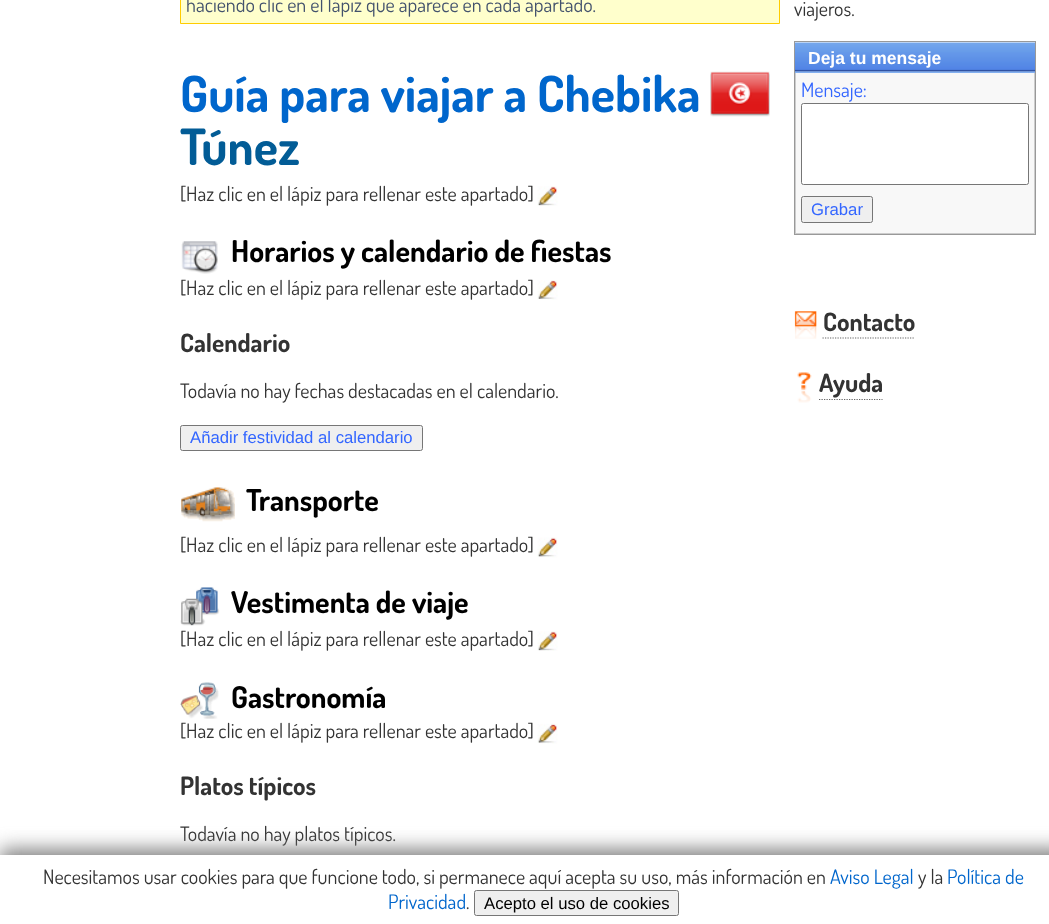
<!DOCTYPE html>
<meta charset="utf-8">
<style>body { margin: 0 } canvas { display: block }</style>
<canvas id="canvas" width="1049" height="924"></canvas>
<script type="module">
  const canvas = document.getElementById("canvas");
  const g = canvas.getContext("2d");
  g.miterLimit = 4;
  g.fontKerning = "normal";
  function drawText(s, x, y, [font, color]) {
    g.font = font;
    g.fillStyle = color;
    g.fillText(s, x, y);
  }
  function fillBox(x, y, w, h, color) {
    g.fillStyle = color;
    g.fillRect(x, y, w, h);
  }
  async function drawPicture(src, x, y, w, h) {
    const img = new Image();
    img.src = src;
    await img.decode();
    g.drawImage(img, x, y, w, h);
  }

  const s1 = ["20px Dosis", "#43526D"];
  const s2 = ["bold 50px Dosis", "#0066CC"];
  const s3 = ["bold 50px Dosis", "#025C96"];
  const s4 = ["20px Dosis", "#333333"];
  const s5 = ["bold 30px Dosis", "#000000"];
  const s6 = ["bold 25.25px Dosis", "#333333"];
  const s7 = ["16.7px Liberation Sans", "#3366FF"];
  const s8 = ["bold 17.5px Liberation Sans", "#FFFFFF"];
  const s9 = ["20px Dosis", "#3366FF"];
  const s10 = ["20px Dosis", "#0066CC"];
  const s11 = ["16.7px Liberation Sans", "#000000"];

  fillBox(0, 0, 1049, 924, "#FFFFFF");
  g.fillStyle = "#FFFFCC";
  g.beginPath();
  g.rect(180.5, -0.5, 599, 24);
  g.fill();
  g.strokeStyle = "#FFCC00";
  g.stroke();
  drawText("haciendo clic en el lápiz que aparece en cada apartado.", 186, 12, s1);
  drawText("Guía para viajar a Chebika", 180, 112, s2);
  await drawPicture("pic1.png", 710, 71, 60, 46);
  drawText("Túnez", 180, 165, s3);
  drawText("[Haz clic en el lápiz para rellenar este apartado]", 180, 201, s4);
  await drawPicture("pic2.png", 537, 186, 21, 20);
  await drawPicture("pic3.png", 181, 241, 37, 33);
  drawText("Horarios y calendario de fiestas", 231, 262, s5);
  drawText("[Haz clic en el lápiz para rellenar este apartado]", 180, 295, s4);
  await drawPicture("pic4.png", 537, 280, 21, 20);
  drawText("Calendario", 180, 352, s6);
  drawText("Todavía no hay fechas destacadas en el calendario.", 180, 398, s4);
  g.fillStyle = "#EFEFEF";
  g.beginPath();
  g.roundRect(180.5, 425.5, 242, 25, 2);
  g.fill();
  g.strokeStyle = "#767676";
  g.stroke();
  drawText("Añadir festividad al calendario", 190, 443, s7);
  await drawPicture("pic5.png", 181, 487, 54, 35);
  drawText("Transporte", 246, 511, s5);
  drawText("[Haz clic en el lápiz para rellenar este apartado]", 180, 552, s4);
  await drawPicture("pic6.png", 537, 537, 21, 21);
  await drawPicture("pic7.png", 180, 587, 40, 39);
  drawText("Vestimenta de viaje", 231, 613, s5);
  drawText("[Haz clic en el lápiz para rellenar este apartado]", 180, 646, s4);
  await drawPicture("pic2.png", 537, 631, 21, 20);
  await drawPicture("pic8.png", 180, 682, 39, 37);
  drawText("Gastronomía", 231, 708, s5);
  drawText("[Haz clic en el lápiz para rellenar este apartado]", 180, 738, s4);
  await drawPicture("pic9.png", 537, 723, 21, 21);
  drawText("Platos típicos", 180, 795, s6);
  drawText("Todavía no hay platos típicos.", 180, 841, s4);
  drawText("viajeros.", 794, 16, s4);
  g.strokeStyle = "#999999";
  g.strokeRect(794.5, 41.5, 241, 193);
  fillBox(795, 72, 240, 1, "#77AAEE");
  await drawPicture("pic10.png", 795, 42, 240, 31);
  drawText("Deja tu mensaje", 808, 64, s8);
  fillBox(796, 73, 238, 160, "#F8F8F8");
  fillBox(1034, 73, 1, 161, "#CCCCCC");
  fillBox(795, 233, 240, 1, "#CCCCCC");
  fillBox(795, 73, 1, 161, "#CCCCCC");
  drawText("Mensaje:", 801, 97, s9);
  g.fillStyle = "#FFFFFF";
  g.beginPath();
  g.roundRect(801.5, 103.5, 227, 81, 2);
  g.fill();
  g.strokeStyle = "#767676";
  g.stroke();
  g.fillStyle = "#EFEFEF";
  g.beginPath();
  g.roundRect(801.5, 196.5, 71, 26, 2);
  g.fill();
  g.stroke();
  drawText("Grabar", 811, 215, s7);
  await drawPicture("pic11.png", 794, 311, 23, 28);
  drawText("Contacto", 823, 331, s6);
  g.beginPath();
  g.moveTo(822.5, 338);
  g.lineTo(915, 338);
  g.strokeStyle = "#666666";
  g.lineWidth = 1.2;
  g.setLineDash([1.25, 1.25]);
  g.stroke();
  await drawPicture("pic12.png", 797, 372, 15, 31);
  drawText("Ayuda", 819, 392, s6);
  g.beginPath();
  g.moveTo(819, 399.5);
  g.lineTo(882.5, 399.5);
  g.stroke();
  g.fillStyle = "#808080";
  g.filter = "blur(9.5px)";
  g.beginPath();
  g.rect(0, 849, 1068, 70);
  g.fill();
  g.filter = "none";
  fillBox(0, 855, 1049, 69, "#FFFFFF");
  drawText("Necesitamos usar cookies para que funcione todo, si permanece aquí acepta su uso, más información en", 43, 884, s4);
  drawText("Aviso Legal", 830, 884, s10);
  drawText("y la", 918, 884, s4);
  drawText("Política de", 947, 884, s10);
  drawText("Privacidad", 388, 909, s10);
  drawText(".", 466, 909, s4);
  g.fillStyle = "#EFEFEF";
  g.beginPath();
  g.roundRect(474.5, 890.5, 204, 25, 2);
  g.fill();
  g.strokeStyle = "#767676";
  g.lineWidth = 1;
  g.setLineDash([]);
  g.stroke();
  drawText("Acepto el uso de cookies", 484, 909, s11);
</script>
